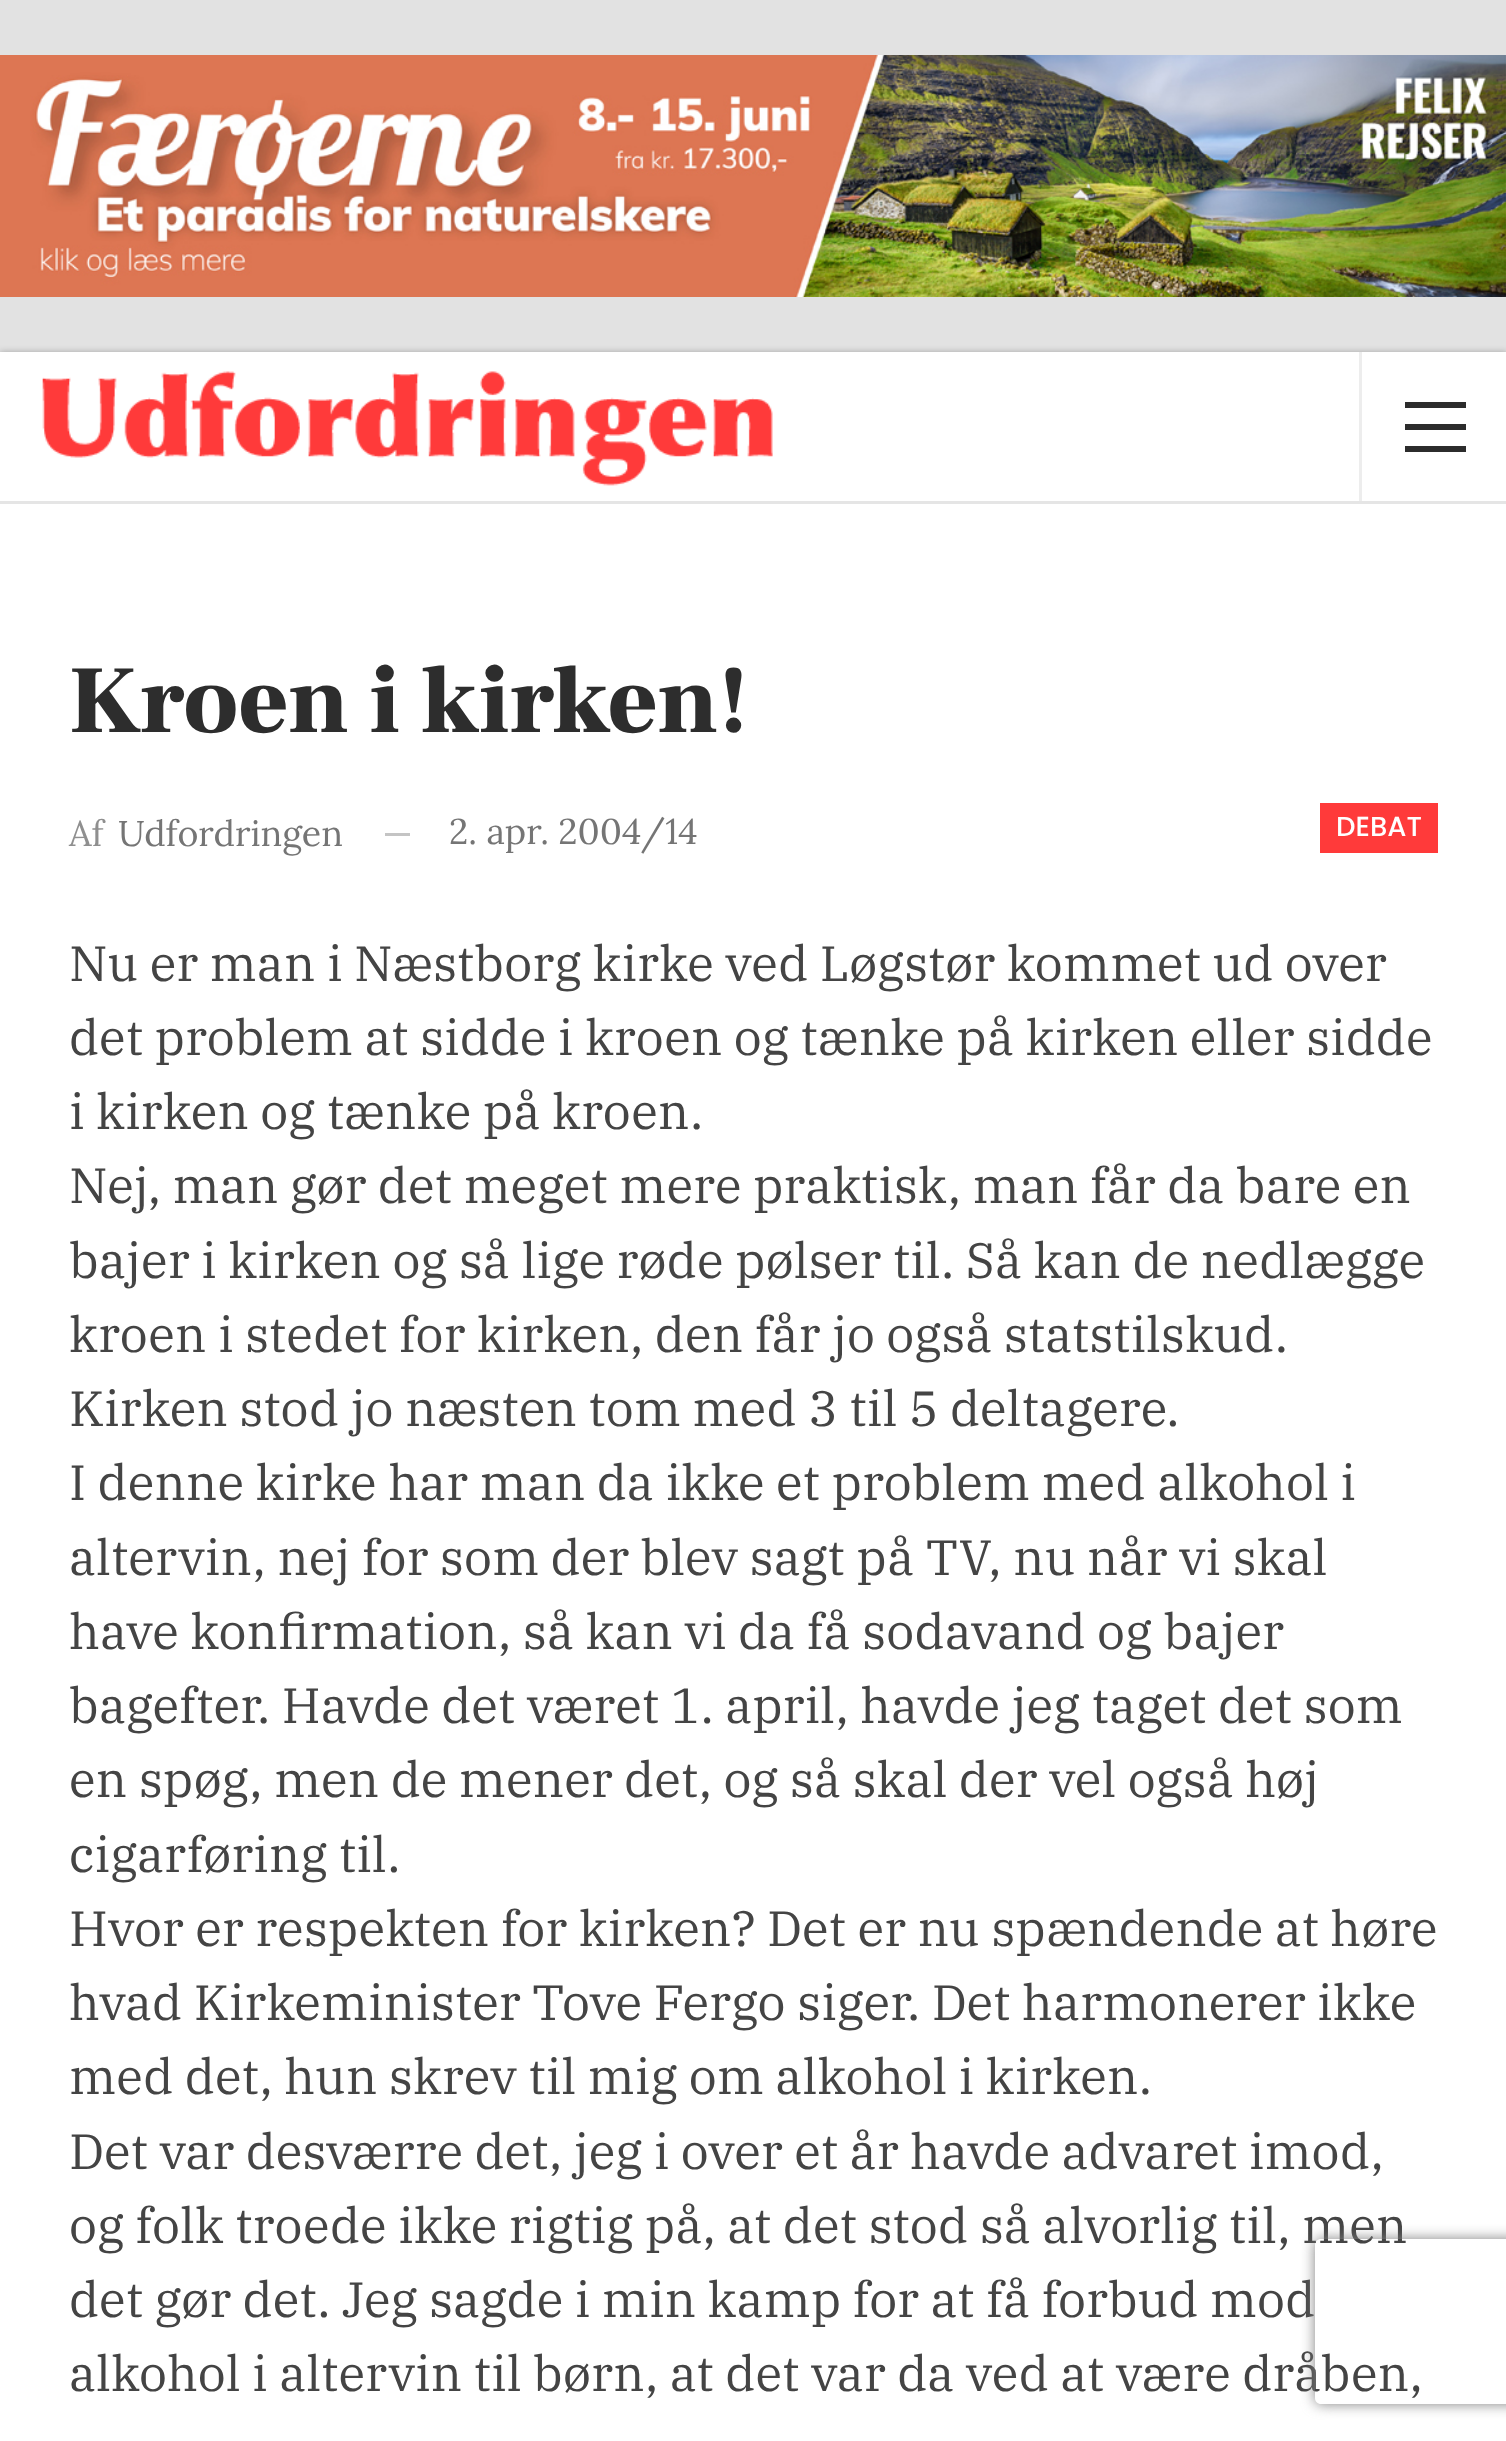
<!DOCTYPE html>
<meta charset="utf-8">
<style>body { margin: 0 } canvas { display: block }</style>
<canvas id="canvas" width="1506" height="2441"></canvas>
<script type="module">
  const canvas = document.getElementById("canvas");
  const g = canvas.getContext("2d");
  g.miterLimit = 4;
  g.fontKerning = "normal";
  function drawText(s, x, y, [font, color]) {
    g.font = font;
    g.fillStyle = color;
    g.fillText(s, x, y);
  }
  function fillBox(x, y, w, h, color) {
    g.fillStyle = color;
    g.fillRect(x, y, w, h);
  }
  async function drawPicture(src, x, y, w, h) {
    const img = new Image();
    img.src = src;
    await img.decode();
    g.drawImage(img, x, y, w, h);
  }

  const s1 = ["900 96.25px Frank Ruhl Libre", "#2D2D2D"];
  const s2 = ["35.75px Lora", "#8F8F8F"];
  const s3 = ["35.75px Lora", "#757575"];
  const s4 = ["500 27.5px Poppins", "#FFFFFF"];
  const s5 = ["49.5px IBM Plex Serif", "#444444"];

  fillBox(0, 0, 1506, 2441, "#E2E2E2");
  await drawPicture("pic1.png", 0, 55, 1506, 242);
  g.fillStyle = "rgba(0, 0, 0, 0.27)";
  g.filter = "blur(3px)";
  g.beginPath();
  g.rect(0, 352, 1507, 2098);
  g.fill();
  g.filter = "none";
  fillBox(0, 352, 1506, 2089, "#FFFFFF");
  fillBox(0, 501, 1506, 3, "#E5E5E5");
  await drawPicture("pic2.png", 42, 371, 731, 115);
  fillBox(1359, 352, 3, 149, "#EDEDED");
  fillBox(1405, 424, 61, 6, "#2C2C2C");
  fillBox(1405, 402, 61, 6, "#2C2C2C");
  fillBox(1405, 446, 61, 6, "#2C2C2C");
  drawText("Kroen i kirken!", 69, 732, s1);
  drawText("Af", 69, 846, s2);
  drawText("Udfordringen", 118, 846, s3);
  fillBox(385, 833, 25, 3, "#C4C4C4");
  drawText("2. apr. 2004/14", 449, 844, s3);
  fillBox(1320, 803, 118, 50, "#FF3A3A");
  drawText("DEBAT", 1336, 836, s4);
  drawText("Nu er man i Næstborg kirke ved Løgstør kommet ud over", 69, 981, s5);
  drawText("det problem at sidde i kroen og tænke på kirken eller sidde", 69, 1055, s5);
  drawText("i kirken og tænke på kroen.", 69, 1129, s5);
  drawText("Nej, man gør det meget mere praktisk, man får da bare en", 69, 1203, s5);
  drawText("bajer i kirken og så lige røde pølser til. Så kan de nedlægge", 69, 1278, s5);
  drawText("kroen i stedet for kirken, den får jo også statstilskud.", 69, 1352, s5);
  drawText("Kirken stod jo næsten tom med 3 til 5 deltagere.", 69, 1426, s5);
  drawText("I denne kirke har man da ikke et problem med alkohol i", 69, 1500, s5);
  drawText("altervin, nej for som der blev sagt på TV, nu når vi skal", 69, 1575, s5);
  drawText("have konfirmation, så kan vi da få sodavand og bajer", 69, 1649, s5);
  drawText("bagefter. Havde det været 1. april, havde jeg taget det som", 69, 1723, s5);
  drawText("en spøg, men de mener det, og så skal der vel også høj", 69, 1797, s5);
  drawText("cigarføring til.", 69, 1872, s5);
  drawText("Hvor er respekten for kirken? Det er nu spændende at høre", 69, 1946, s5);
  drawText("hvad Kirkeminister Tove Fergo siger. Det harmonerer ikke", 69, 2020, s5);
  drawText("med det, hun skrev til mig om alkohol i kirken.", 69, 2094, s5);
  drawText("Det var desværre det, jeg i over et år havde advaret imod,", 69, 2169, s5);
  drawText("og folk troede ikke rigtig på, at det stod så alvorlig til, men", 69, 2243, s5);
  drawText("det gør det. Jeg sagde i min kamp for at få forbud mod", 69, 2317, s5);
  drawText("alkohol i altervin til børn, at det var da ved at være dråben,", 69, 2391, s5);
  g.save();
  g.beginPath();
  g.moveTo(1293, 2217);
  g.lineTo(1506, 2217);
  g.lineTo(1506, 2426);
  g.lineTo(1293, 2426);
  g.closePath();
  g.moveTo(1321, 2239);
  g.lineTo(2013, 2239);
  g.bezierCurveTo(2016.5, 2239, 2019, 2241.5, 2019, 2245);
  g.lineTo(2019, 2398);
  g.bezierCurveTo(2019, 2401.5, 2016.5, 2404, 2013, 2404);
  g.lineTo(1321, 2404);
  g.bezierCurveTo(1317.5, 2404, 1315, 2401.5, 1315, 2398);
  g.lineTo(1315, 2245);
  g.bezierCurveTo(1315, 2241.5, 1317.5, 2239, 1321, 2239);
  g.closePath();
  g.clip("evenodd");
  g.fillStyle = "#808080";
  g.filter = "blur(7px)";
  g.beginPath();
  g.roundRect(1315, 2239, 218, 165, 6);
  g.fill();
  g.filter = "none";
  g.restore();
</script>
